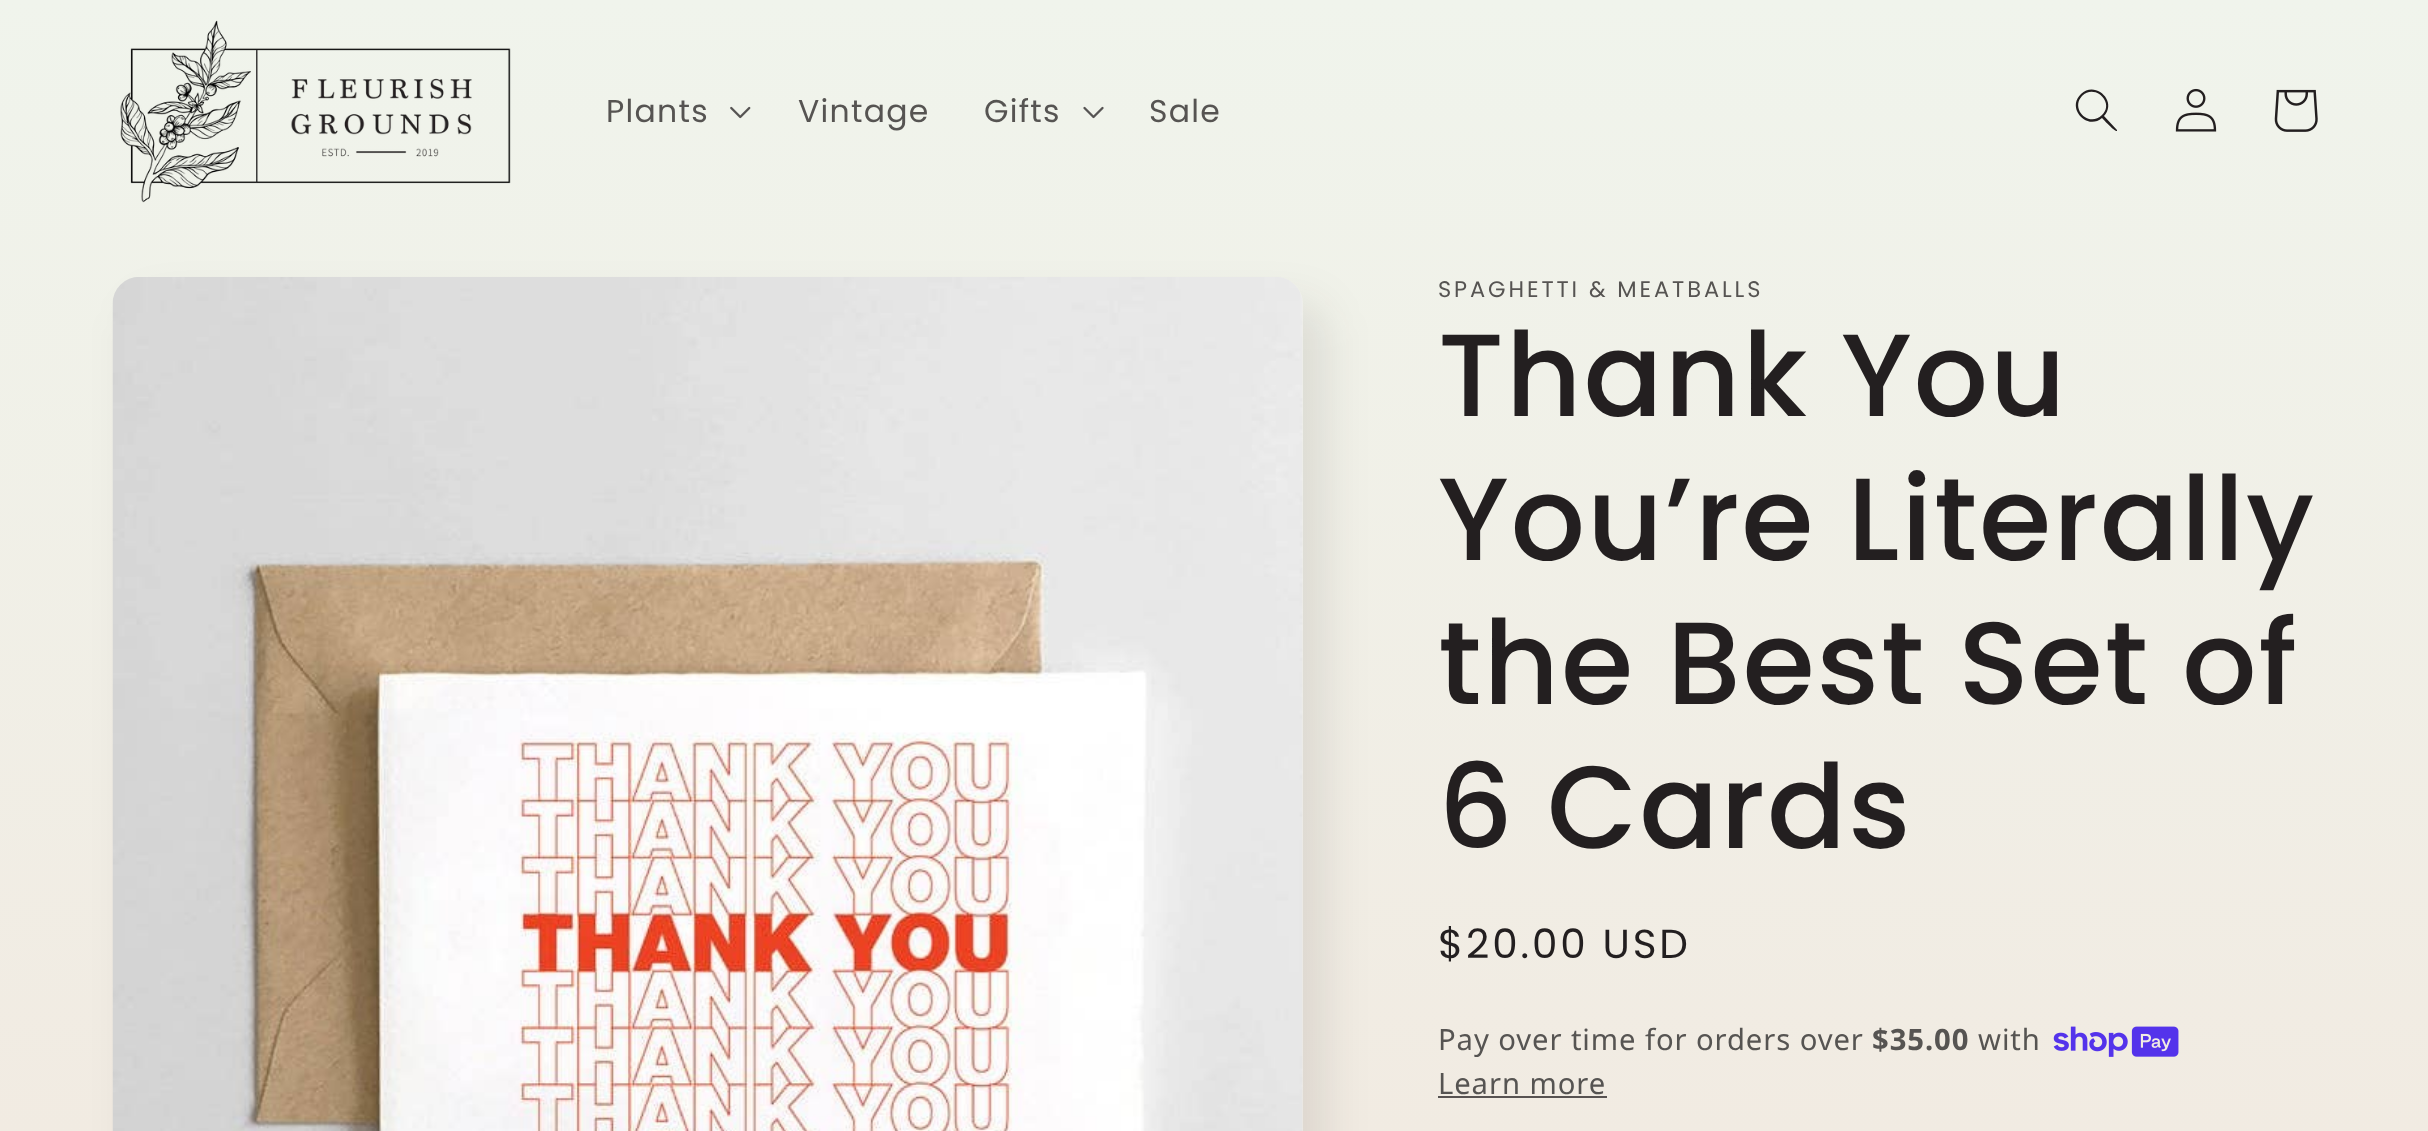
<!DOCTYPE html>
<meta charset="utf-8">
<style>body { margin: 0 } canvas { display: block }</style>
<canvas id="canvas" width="2428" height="1131"></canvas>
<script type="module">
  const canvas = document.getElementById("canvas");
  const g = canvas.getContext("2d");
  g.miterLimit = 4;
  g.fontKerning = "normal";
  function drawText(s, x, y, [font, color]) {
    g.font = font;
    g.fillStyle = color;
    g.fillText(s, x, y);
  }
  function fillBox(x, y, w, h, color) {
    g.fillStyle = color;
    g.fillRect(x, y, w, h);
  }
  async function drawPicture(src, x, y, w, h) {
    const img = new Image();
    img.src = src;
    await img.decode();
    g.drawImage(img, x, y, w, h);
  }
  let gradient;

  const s1 = ["31.5px Poppins", "#565452"];
  const s2 = ["22.5px Poppins", "#565452"];
  const s3 = ["500 117px Poppins", "#231F20"];
  const s4 = ["40.5px Poppins", "#231F20"];
  const s5 = ["29.25px Noto Sans", "#565452"];
  const s6 = ["bold 29.25px Noto Sans", "#565452"];

  fillBox(0, 0, 2428, 1131, "#FFFFFF");
  gradient = g.createLinearGradient(1215, 0, 1215, 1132);
  gradient.addColorStop(0, "#F0F4EC");
  gradient.addColorStop(1, "#F1EBE2");
  g.fillStyle = gradient;
  g.fillRect(0, 0, 2428, 1131);
  await drawPicture("pic1.png", 120, 20, 391, 183);
  g.letterSpacing = "1.25px";
  drawText("Plants", 606, 122, s1);
  await drawPicture("pic2.png", 730, 106, 21, 13);
  drawText("Vintage", 798, 122, s1);
  drawText("Gifts", 984, 122, s1);
  await drawPicture("pic3.png", 1083, 106, 21, 13);
  drawText("Sale", 1149, 122, s1);
  g.fillStyle = "#231F20";
  g.beginPath();
  g.moveTo(2102, 115);
  g.bezierCurveTo(2089, 128, 2070, 109, 2082, 96);
  g.bezierCurveTo(2095, 83, 2115, 103, 2102, 115);
  g.closePath();
  g.moveTo(2102, 118);
  g.bezierCurveTo(2087, 131, 2066, 108, 2081, 94);
  g.bezierCurveTo(2095, 80, 2118, 101, 2104, 116);
  g.lineTo(2117, 130);
  g.lineTo(2117, 131);
  g.bezierCurveTo(2115, 132, 2104, 120, 2102, 118);
  g.closePath();
  g.fill("evenodd");
  await drawPicture("pic4.png", 2175, 88, 42, 44);
  await drawPicture("pic5.png", 2274, 89, 44, 43);
  g.fillStyle = "rgba(35, 31, 32, 0.1)";
  g.filter = "blur(22.5px)";
  g.beginPath();
  g.roundRect(135, 304, 1190, 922, 27);
  g.fill();
  g.filter = "none";
  gradient = g.createLinearGradient(1215, 0, 1215, 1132);
  gradient.addColorStop(0, "#F0F4EC");
  gradient.addColorStop(1, "#F1EBE2");
  g.fillStyle = gradient;
  g.beginPath();
  g.moveTo(140, 277);
  g.lineTo(1276, 277);
  g.bezierCurveTo(1291, 277, 1303, 289, 1303, 304);
  g.lineTo(1303, 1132);
  g.lineTo(113, 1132);
  g.lineTo(113, 304);
  g.bezierCurveTo(113, 289, 125, 277, 140, 277);
  g.closePath();
  g.fill();
  await drawPicture("pic6.png", 112, 277, 1191, 854);
  g.letterSpacing = "2.9px";
  drawText("SPAGHETTI & MEATBALLS", 1438, 297, s2);
  g.letterSpacing = "1.75px";
  drawText("Thank You", 1438, 416, s3);
  drawText("You’re Literally", 1438, 560, s3);
  drawText("the Best Set of", 1438, 704, s3);
  drawText("6 Cards", 1438, 848, s3);
  g.letterSpacing = "2.9px";
  drawText("$20.00 USD", 1438, 958, s4);
  g.letterSpacing = "0.9px";
  drawText("Pay over time for orders over", 1438, 1050, s5);
  drawText("$35.00", 1872, 1050, s6);
  drawText("with", 1978, 1050, s5);
  await drawPicture("pic7.png", 2053, 1026, 126, 31);
  drawText("Learn more", 1438, 1094, s5);
  fillBox(1438, 1096, 169, 2, "#575251");
</script>
